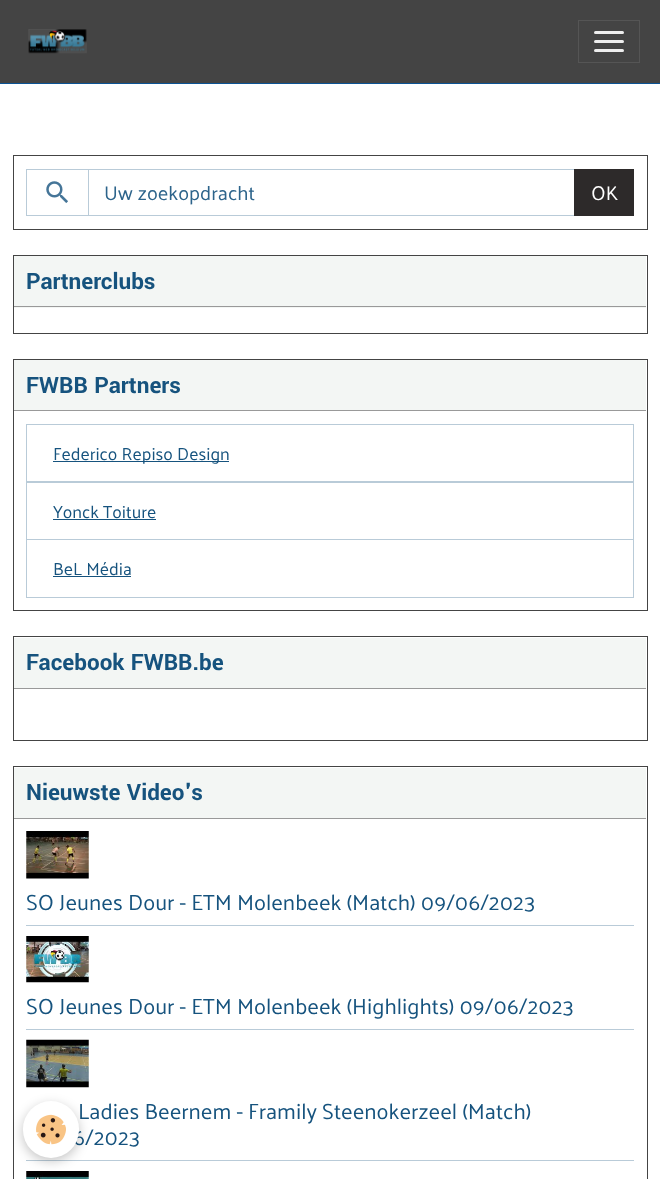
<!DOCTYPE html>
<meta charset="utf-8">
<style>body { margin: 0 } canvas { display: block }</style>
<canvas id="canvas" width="660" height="1179"></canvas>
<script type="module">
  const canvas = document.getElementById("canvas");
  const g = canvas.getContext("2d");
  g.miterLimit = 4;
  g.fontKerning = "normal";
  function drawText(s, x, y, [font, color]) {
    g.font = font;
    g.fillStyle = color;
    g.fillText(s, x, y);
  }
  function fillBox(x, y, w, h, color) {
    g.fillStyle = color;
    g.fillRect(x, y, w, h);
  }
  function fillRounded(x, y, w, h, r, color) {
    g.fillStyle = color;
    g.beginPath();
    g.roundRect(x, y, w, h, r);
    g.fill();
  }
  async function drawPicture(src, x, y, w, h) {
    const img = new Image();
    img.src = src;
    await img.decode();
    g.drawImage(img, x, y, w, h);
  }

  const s1 = ["20px Palanquin", "#2D648B"];
  const s2 = ["20px Palanquin", "#FFFFFF"];
  const s3 = ["bold 25px Yantramanav", "#16537E"];
  const s4 = ["17.5px Palanquin", "#16537E"];
  const s5 = ["22px Palanquin", "#16537E"];

  fillBox(0, 0, 660, 1179, "#FFFFFF");
  fillBox(0, 0, 660, 83, "#444444");
  fillBox(0, 83, 660, 1, "#0B5394");
  await drawPicture("pic1.png", 28, 29, 59, 25);
  g.strokeStyle = "#555555";
  g.strokeRect(578.5, 20.5, 61, 42);
  fillRounded(594, 31, 30, 3, 1.5, "#EEEEEE");
  fillRounded(594, 40, 30, 3, 1.5, "#EEEEEE");
  fillRounded(594, 49, 30, 3, 1.5, "#EEEEEE");
  g.strokeStyle = "#444444";
  g.strokeRect(13.5, 155.5, 634, 74);
  g.strokeStyle = "#B9CBD8";
  g.strokeRect(26.5, 169.5, 62, 46);
  await drawPicture("pic2.png", 46, 181, 22, 22);
  g.strokeRect(88.5, 169.5, 486, 46);
  drawText("Uw zoekopdracht", 104, 200, s1);
  fillBox(574, 169, 60, 47, "#2D2A2A");
  drawText("OK", 591, 200, s2);
  g.strokeStyle = "#444444";
  g.strokeRect(13.5, 255.5, 634, 78);
  fillBox(14, 256, 632, 52, "#F3F6F4");
  fillBox(14, 306, 632, 1, "#999999");
  drawText("Partnerclubs", 26, 289, s3);
  g.strokeRect(13.5, 359.5, 634, 251);
  fillBox(14, 360, 632, 50, "#F3F6F4");
  fillBox(14, 410, 632, 1, "#999999");
  drawText("FWBB Partners", 26, 393, s3);
  g.strokeStyle = "#B9CBD8";
  g.strokeRect(26.5, 424.5, 607, 58);
  fillBox(53, 461, 176, 1, "#16537E");
  drawText("Federico Repiso Design", 53, 460, s4);
  g.strokeRect(26.5, 481.5, 607, 58);
  drawText("Yonck Toiture", 53, 518, s4);
  fillBox(53, 519, 103, 1, "#16537E");
  g.strokeRect(26.5, 539.5, 607, 58);
  drawText("BeL Média", 53, 575, s4);
  fillBox(53, 576, 78, 1, "#16537E");
  g.strokeStyle = "#444444";
  g.strokeRect(13.5, 636.5, 634, 104);
  fillBox(14, 638, 632, 50, "#F3F6F4");
  fillBox(14, 688, 632, 1, "#999999");
  drawText("Facebook FWBB.be", 26, 670, s3);
  g.strokeRect(13.5, 766.5, 634, 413);
  fillBox(14, 768, 632, 50, "#F3F6F4");
  fillBox(14, 818, 632, 1, "#999999");
  drawText("Nieuwste Video's", 26, 800, s3);
  await drawPicture("pic3.png", 26, 831, 63, 48);
  drawText("SO Jeunes Dour - ETM Molenbeek (Match) 09/06/2023", 26, 910, s5);
  fillBox(26, 925, 608, 1, "#B9CBD8");
  await drawPicture("pic4.png", 26, 936, 63, 47);
  drawText("SO Jeunes Dour - ETM Molenbeek (Highlights) 09/06/2023", 26, 1014, s5);
  fillBox(26, 1029, 608, 1, "#B9CBD8");
  await drawPicture("pic5.png", 26, 1039, 63, 49);
  drawText("Ladies Beernem - Framily Steenokerzeel (Match)", 78, 1119, s5);
  drawText("6/2023", 73, 1145, s5);
  fillBox(26, 1160, 608, 1, "#B9CBD8");
  await drawPicture("pic6.png", 26, 1171, 63, 8);
  g.fillStyle = "rgba(0, 0, 0, 0.24)";
  g.filter = "blur(6px)";
  g.beginPath();
  g.roundRect(23, 1105, 56, 56, 28);
  g.fill();
  g.filter = "none";
  fillRounded(23, 1101, 56, 57, 28, "#FFFFFF");
  await drawPicture("pic7.png", 36, 1114, 30, 31);
</script>
